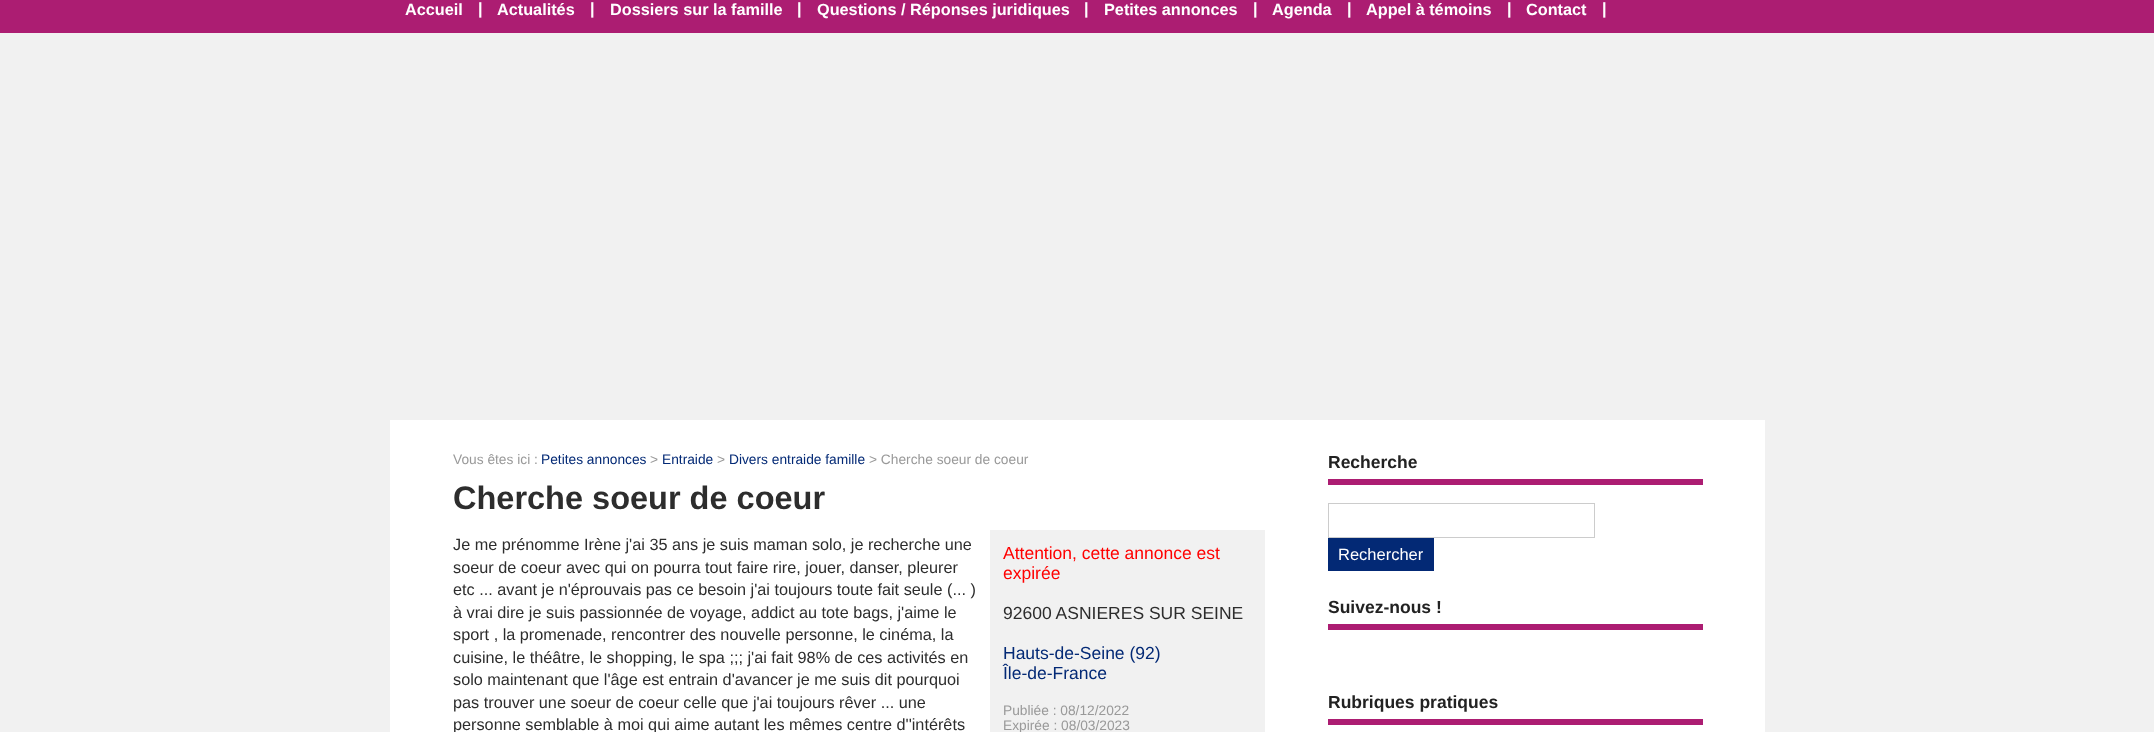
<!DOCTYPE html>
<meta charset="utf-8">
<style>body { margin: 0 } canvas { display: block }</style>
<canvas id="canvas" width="2154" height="732"></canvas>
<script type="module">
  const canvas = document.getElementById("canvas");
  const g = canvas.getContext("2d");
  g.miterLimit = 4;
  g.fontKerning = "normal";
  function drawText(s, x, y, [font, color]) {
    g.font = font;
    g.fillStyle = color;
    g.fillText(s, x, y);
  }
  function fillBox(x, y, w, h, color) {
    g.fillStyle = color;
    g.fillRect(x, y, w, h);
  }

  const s1 = ["bold 16.25px Liberation Sans", "#FFFFFF"];
  const s2 = ["13.75px Liberation Sans", "#999999"];
  const s3 = ["13.75px Liberation Sans", "#032975"];
  const s4 = ["bold 32.5px Liberation Sans", "#2D2D2D"];
  const s5 = ["16.25px Liberation Sans", "#2D2D2D"];
  const s6 = ["17.5px Liberation Sans", "#FF0000"];
  const s7 = ["17.5px Liberation Sans", "#2D2D2D"];
  const s8 = ["17.5px Liberation Sans", "#032975"];
  const s9 = ["bold 17.5px Liberation Sans", "#222222"];
  const s10 = ["16.5px Liberation Sans", "#FFFFFF"];

  fillBox(0, 0, 2154, 732, "#F1F1F1");
  fillBox(0, 0, 2154, 33, "#AC1D72");
  drawText("Accueil", 405, 15, s1);
  drawText("|", 478, 14, s1);
  drawText("Actualités", 497, 15, s1);
  drawText("|", 590, 14, s1);
  drawText("Dossiers sur la famille", 610, 15, s1);
  drawText("|", 797, 14, s1);
  drawText("Questions / Réponses juridiques", 817, 15, s1);
  drawText("|", 1084, 14, s1);
  drawText("Petites annonces", 1104, 15, s1);
  drawText("|", 1253, 14, s1);
  drawText("Agenda", 1272, 15, s1);
  drawText("|", 1347, 14, s1);
  drawText("Appel à témoins", 1366, 15, s1);
  drawText("|", 1507, 14, s1);
  drawText("Contact", 1526, 15, s1);
  drawText("|", 1602, 14, s1);
  fillBox(390, 420, 1375, 312, "#FFFFFF");
  drawText("Vous êtes ici :", 453, 464, s2);
  drawText("Petites annonces", 541, 464, s3);
  drawText(">", 650, 464, s2);
  drawText("Entraide", 662, 464, s3);
  drawText(">", 717, 464, s2);
  drawText("Divers entraide famille", 729, 464, s3);
  drawText("> Cherche soeur de coeur", 869, 464, s2);
  drawText("Cherche soeur de coeur", 453, 509, s4);
  drawText("Je me prénomme Irène j'ai 35 ans je suis maman solo, je recherche une", 453, 550, s5);
  drawText("soeur de coeur avec qui on pourra tout faire rire, jouer, danser, pleurer", 453, 573, s5);
  drawText("etc ... avant je n'éprouvais pas ce besoin j'ai toujours toute fait seule (... )", 453, 595, s5);
  drawText("à vrai dire je suis passionnée de voyage, addict au tote bags, j'aime le", 453, 618, s5);
  drawText("sport , la promenade, rencontrer des nouvelle personne, le cinéma, la", 453, 640, s5);
  drawText("cuisine, le théâtre, le shopping, le spa ;;; j'ai fait 98% de ces activités en", 453, 663, s5);
  drawText("solo maintenant que l'âge est entrain d'avancer je me suis dit pourquoi", 453, 685, s5);
  drawText("pas trouver une soeur de coeur celle que j'ai toujours rêver ... une", 453, 708, s5);
  drawText("personne semblable à moi qui aime autant les mêmes centre d''intérêts", 453, 730, s5);
  fillBox(990, 530, 275, 202, "#F1F1F1");
  drawText("Attention, cette annonce est", 1003, 559, s6);
  drawText("expirée", 1003, 579, s6);
  drawText("92600 ASNIERES SUR SEINE", 1003, 619, s7);
  drawText("Hauts-de-Seine (92)", 1003, 659, s8);
  drawText("Île-de-France", 1003, 679, s8);
  drawText("Publiée : 08/12/2022", 1003, 715, s2);
  drawText("Expirée : 08/03/2023", 1003, 730, s2);
  fillBox(1328, 479, 375, 6, "#AC1D72");
  drawText("Recherche", 1328, 468, s9);
  g.strokeStyle = "#CCCCCC";
  g.strokeRect(1328.5, 503.5, 266, 34);
  fillBox(1328, 538, 106, 33, "#032975");
  drawText("Rechercher", 1338, 560, s10);
  fillBox(1328, 624, 375, 6, "#AC1D72");
  drawText("Suivez-nous !", 1328, 613, s9);
  fillBox(1328, 719, 375, 6, "#AC1D72");
  drawText("Rubriques pratiques", 1328, 708, s9);
</script>
